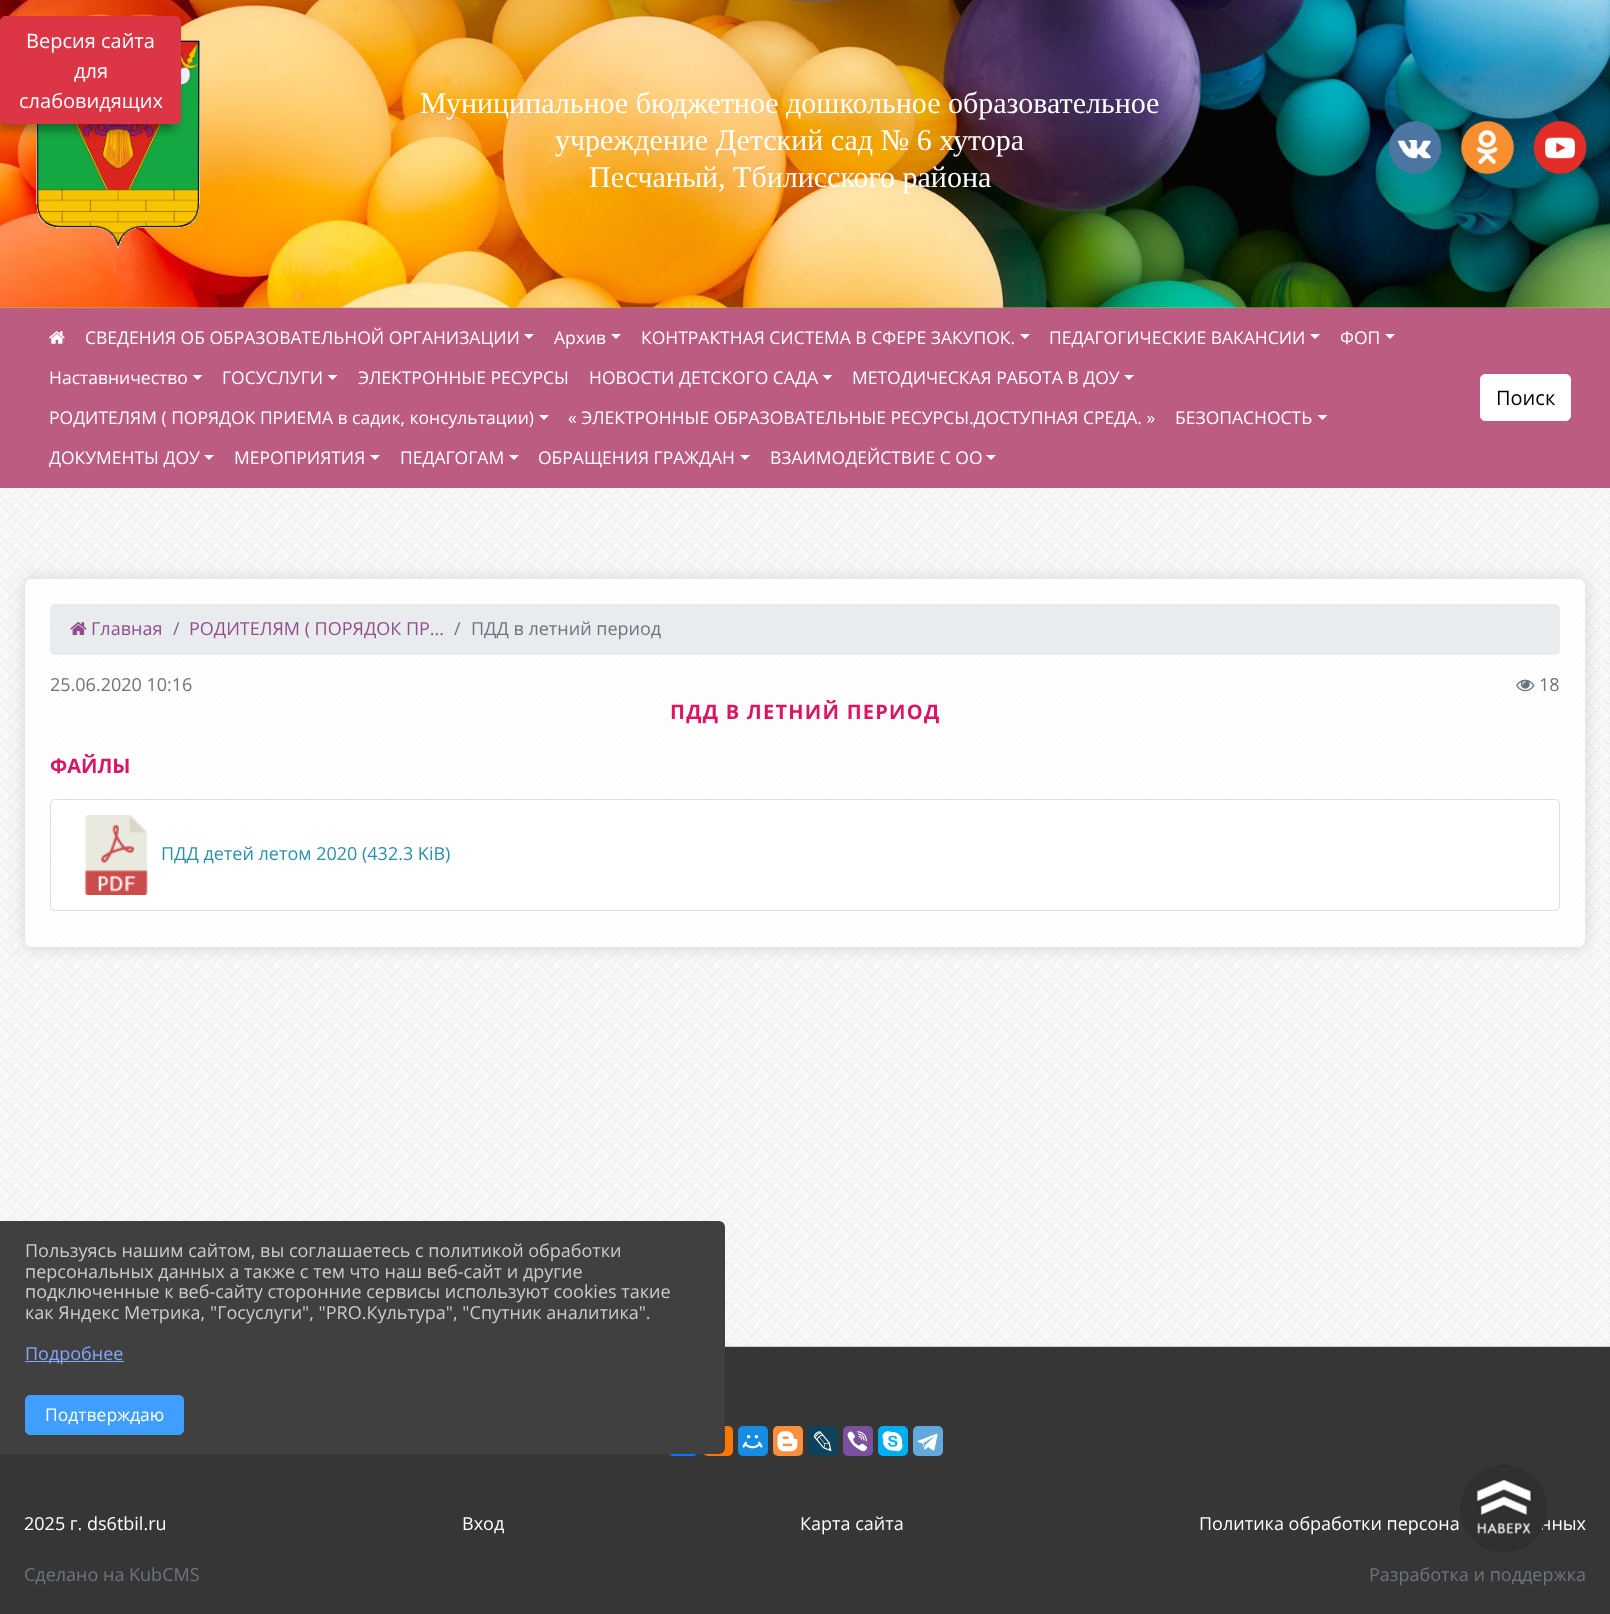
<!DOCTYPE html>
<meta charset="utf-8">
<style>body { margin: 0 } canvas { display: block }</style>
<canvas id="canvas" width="1610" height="1614"></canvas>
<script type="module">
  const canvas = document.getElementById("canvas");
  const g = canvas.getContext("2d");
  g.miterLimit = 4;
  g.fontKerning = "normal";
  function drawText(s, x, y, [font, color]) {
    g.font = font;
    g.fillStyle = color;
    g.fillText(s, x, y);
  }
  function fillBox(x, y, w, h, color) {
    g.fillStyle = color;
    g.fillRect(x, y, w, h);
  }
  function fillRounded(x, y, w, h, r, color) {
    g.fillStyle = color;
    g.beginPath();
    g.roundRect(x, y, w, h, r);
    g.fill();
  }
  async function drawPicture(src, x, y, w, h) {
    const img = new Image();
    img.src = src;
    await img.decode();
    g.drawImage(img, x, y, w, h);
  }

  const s1 = ["20px Open Sans", "#FFFFFF"];
  const s2 = ["30px Liberation Serif", "#FFFFFF"];
  const s3 = ["17.5px Open Sans", "#FFFFFF"];
  const s4 = ["20px Open Sans", "#000000"];
  const s5 = ["18px Open Sans", "#914D8C"];
  const s6 = ["18px Open Sans", "#6C757D"];
  const s7 = ["bold 20px Open Sans", "#DA1564"];
  const s8 = ["18px Open Sans", "#2C90AA"];
  const s9 = ["18px Open Sans", "#FFFFFF"];
  const s10 = ["18px Open Sans", "#CCCCCC"];
  const s11 = ["18px Open Sans", "#85A6F9"];

  fillBox(0, 0, 1610, 1614, "#FFFFFF");
  await drawPicture("pic1.png", 0, 488, 1610, 858);
  fillBox(0, 307, 1610, 1, "#A7CB45");
  await drawPicture("pic2.png", 0, 0, 1610, 308);
  await drawPicture("pic3.png", 36, 40, 164, 208);
  g.fillStyle = "rgba(0, 0, 0, 0.35)";
  g.filter = "blur(5px)";
  g.beginPath();
  g.roundRect(-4, 25, 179, 105, 4);
  g.fill();
  g.filter = "none";
  g.fillStyle = "#DC3545";
  g.beginPath();
  g.roundRect(0.5, 16.5, 180, 107, 4.5);
  g.fill();
  g.strokeStyle = "#DC3545";
  g.stroke();
  drawText("Версия сайта", 26, 48, s1);
  drawText("для", 74, 78, s1);
  drawText("слабовидящих", 19, 108, s1);
  drawText("Муниципальное бюджетное дошкольное образовательное", 420, 113, s2);
  drawText("учреждение Детский сад № 6 хутора", 555, 150, s2);
  drawText("Песчаный, Тбилисского района", 589, 187, s2);
  await drawPicture("pic4.png", 1388, 121, 54, 53);
  await drawPicture("pic5.png", 1461, 121, 53, 53);
  await drawPicture("pic6.png", 1533, 121, 54, 53);
  fillBox(0, 308, 1610, 180, "#BC5C83");
  await drawPicture("pic7.png", 49, 331, 16, 13);
  drawText("СВЕДЕНИЯ ОБ ОБРАЗОВАТЕЛЬНОЙ ОРГАНИЗАЦИИ", 85, 344, s3);
  g.beginPath();
  g.moveTo(524, 334);
  g.lineTo(534, 334);
  g.lineTo(529, 339);
  g.closePath();
  g.fill();
  drawText("Архив", 554, 344, s3);
  g.beginPath();
  g.moveTo(611, 334);
  g.lineTo(621, 334);
  g.lineTo(616, 339);
  g.closePath();
  g.fill();
  drawText("КОНТРАКТНАЯ СИСТЕМА В СФЕРЕ ЗАКУПОК.", 641, 344, s3);
  g.beginPath();
  g.moveTo(1020, 334);
  g.lineTo(1030, 334);
  g.lineTo(1025, 339);
  g.closePath();
  g.fill();
  drawText("ПЕДАГОГИЧЕСКИЕ ВАКАНСИИ", 1049, 344, s3);
  g.beginPath();
  g.moveTo(1310, 334);
  g.lineTo(1320, 334);
  g.lineTo(1315, 339);
  g.closePath();
  g.fill();
  drawText("ФОП", 1340, 344, s3);
  g.beginPath();
  g.moveTo(1385, 334);
  g.lineTo(1395, 334);
  g.lineTo(1390, 339);
  g.closePath();
  g.fill();
  drawText("Наставничество", 49, 384, s3);
  g.beginPath();
  g.moveTo(192.5, 375);
  g.lineTo(202.5, 375);
  g.lineTo(197.5, 380);
  g.closePath();
  g.fill();
  drawText("ГОСУСЛУГИ", 222, 384, s3);
  g.beginPath();
  g.moveTo(327.5, 375);
  g.lineTo(337.5, 375);
  g.lineTo(332.5, 380);
  g.closePath();
  g.fill();
  drawText("ЭЛЕКТРОННЫЕ РЕСУРСЫ", 358, 384, s3);
  drawText("НОВОСТИ ДЕТСКОГО САДА", 589, 384, s3);
  g.beginPath();
  g.moveTo(822.5, 375);
  g.lineTo(832.5, 375);
  g.lineTo(827.5, 380);
  g.closePath();
  g.fill();
  drawText("МЕТОДИЧЕСКАЯ РАБОТА В ДОУ", 852, 384, s3);
  g.beginPath();
  g.moveTo(1124, 375);
  g.lineTo(1134, 375);
  g.lineTo(1129, 380);
  g.closePath();
  g.fill();
  drawText("РОДИТЕЛЯМ ( ПОРЯДОК ПРИЕМА в садик, консультации)", 49, 424, s3);
  g.beginPath();
  g.moveTo(539, 415);
  g.lineTo(549, 415);
  g.lineTo(544, 420);
  g.closePath();
  g.fill();
  drawText("« ЭЛЕКТРОННЫЕ ОБРАЗОВАТЕЛЬНЫЕ РЕСУРСЫ.ДОСТУПНАЯ СРЕДА. »", 568, 424, s3);
  drawText("БЕЗОПАСНОСТЬ", 1175, 424, s3);
  g.beginPath();
  g.moveTo(1317.5, 415);
  g.lineTo(1327.5, 415);
  g.lineTo(1322.5, 420);
  g.closePath();
  g.fill();
  drawText("ДОКУМЕНТЫ ДОУ", 49, 464, s3);
  g.beginPath();
  g.moveTo(204, 455);
  g.lineTo(214, 455);
  g.lineTo(209, 460);
  g.closePath();
  g.fill();
  drawText("МЕРОПРИЯТИЯ", 234, 464, s3);
  g.beginPath();
  g.moveTo(370, 455);
  g.lineTo(380, 455);
  g.lineTo(375, 460);
  g.closePath();
  g.fill();
  drawText("ПЕДАГОГАМ", 400, 464, s3);
  g.beginPath();
  g.moveTo(509, 455);
  g.lineTo(519, 455);
  g.lineTo(514, 460);
  g.closePath();
  g.fill();
  drawText("ОБРАЩЕНИЯ ГРАЖДАН", 538, 464, s3);
  g.beginPath();
  g.moveTo(740, 455);
  g.lineTo(750, 455);
  g.lineTo(745, 460);
  g.closePath();
  g.fill();
  drawText("ВЗАИМОДЕЙСТВИЕ С ОО", 770, 464, s3);
  g.beginPath();
  g.moveTo(986, 455);
  g.lineTo(996, 455);
  g.lineTo(991, 460);
  g.closePath();
  g.fill();
  g.beginPath();
  g.roundRect(1480.5, 374.5, 90, 46, 4.5);
  g.fill();
  g.strokeStyle = "#FFFFFF";
  g.stroke();
  drawText("Поиск", 1496, 405, s4);
  g.save();
  g.beginPath();
  g.moveTo(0, 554);
  g.lineTo(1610, 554);
  g.lineTo(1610, 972);
  g.lineTo(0, 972);
  g.closePath();
  g.moveTo(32, 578);
  g.lineTo(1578, 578);
  g.bezierCurveTo(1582.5, 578, 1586, 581.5, 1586, 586);
  g.lineTo(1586, 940);
  g.bezierCurveTo(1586, 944.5, 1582.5, 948, 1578, 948);
  g.lineTo(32, 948);
  g.bezierCurveTo(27.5, 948, 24, 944.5, 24, 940);
  g.lineTo(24, 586);
  g.bezierCurveTo(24, 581.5, 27.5, 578, 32, 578);
  g.closePath();
  g.clip("evenodd");
  g.fillStyle = "rgba(0, 0, 0, 0.12)";
  g.filter = "blur(7.5px)";
  g.beginPath();
  g.roundRect(24, 578, 1562, 370, 8);
  g.fill();
  g.filter = "none";
  g.restore();
  g.fillStyle = "rgba(255, 255, 255, 0.81)";
  g.beginPath();
  g.roundRect(24.5, 578.5, 1561, 369, 7.5);
  g.fill();
  g.strokeStyle = "#E4E7ED";
  g.stroke();
  fillRounded(50, 604, 1510, 51, 5, "#E9ECEF");
  await drawPicture("pic8.png", 70, 622, 17, 13);
  drawText("Главная", 91, 635, s5);
  drawText("/", 173, 635, s6);
  drawText("РОДИТЕЛЯМ ( ПОРЯДОК ПР...", 189, 635, s5);
  drawText("/", 454, 635, s6);
  drawText("ПДД в летний период", 471, 635, s6);
  drawText("25.06.2020 10:16", 50, 691, s6);
  await drawPicture("pic9.png", 1516, 679, 19, 13);
  drawText("18", 1539, 691, s6);
  g.letterSpacing = "1.25px";
  drawText("ПДД В ЛЕТНИЙ ПЕРИОД", 670, 719, s7);
  g.letterSpacing = "0px";
  drawText("ФАЙЛЫ", 50, 773, s7);
  g.fillStyle = "#FFFFFF";
  g.beginPath();
  g.roundRect(50.5, 799.5, 1509, 111, 4.5);
  g.fill();
  g.strokeStyle = "#DFDFDF";
  g.stroke();
  await drawPicture("pic10.png", 84, 815, 64, 80);
  drawText("ПДД детей летом 2020 (432.3 KiB)", 161, 860, s8);
  fillBox(0, 1347, 1610, 267, "#373636");
  fillBox(725, 1346, 885, 1, "#CCCCCC");
  fillRounded(668, 1426, 30, 30, 5, "#0077FF");
  fillRounded(703, 1426, 30, 30, 5, "#FF7700");
  fillRounded(738, 1426, 30, 30, 5, "#168DE2");
  await drawPicture("pic11.png", 742, 1435, 21, 14);
  fillRounded(773, 1426, 30, 30, 5, "#FB8F3D");
  await drawPicture("pic12.png", 777, 1431, 21, 21);
  fillRounded(808, 1426, 30, 30, 5, "#0D425A");
  await drawPicture("pic13.png", 813, 1431, 19, 21);
  fillRounded(843, 1426, 30, 30, 5, "#7B519D");
  await drawPicture("pic14.png", 847, 1431, 20, 21);
  fillRounded(878, 1426, 30, 30, 5, "#00AFF0");
  await drawPicture("pic15.png", 882, 1431, 21, 21);
  fillRounded(913, 1426, 30, 30, 5, "#64A9DC");
  await drawPicture("pic16.png", 917, 1433, 21, 18);
  drawText("нных", 1540, 1530, s9);
  await drawPicture("pic17.png", 1460, 1465, 87, 87);
  drawText("2025 г. ds6tbil.ru", 24, 1530, s9);
  drawText("Вход", 462, 1530, s9);
  drawText("Карта сайта", 800, 1530, s9);
  drawText("Политика обработки персона", 1199, 1530, s9);
  drawText("Сделано на KubCMS", 24, 1581, s6);
  drawText("Разработка и поддержка", 1369, 1581, s6);
  g.fillStyle = "#404040";
  g.beginPath();
  g.roundRect(0, 1221, 725, 233, [0, 6, 6, 0]);
  g.fill();
  drawText("Пользуясь нашим сайтом, вы соглашаетесь с политикой обработки", 25, 1257, s10);
  drawText("персональных данных а также с тем что наш веб-сайт и другие", 25, 1278, s10);
  drawText("подключенные к веб-сайту сторонние сервисы используют cookies такие", 25, 1298, s10);
  drawText("как Яндекс Метрика, \"Госуслуги\", \"PRO.Культура\", \"Спутник аналитика\".", 25, 1319, s10);
  fillBox(25, 1361, 99, 1, "#85A6F9");
  drawText("Подробнее", 25, 1360, s11);
  g.fillStyle = "#409EFF";
  g.beginPath();
  g.roundRect(25.5, 1395.5, 158, 39, 4.5);
  g.fill();
  g.strokeStyle = "#409EFF";
  g.stroke();
  drawText("Подтверждаю", 45, 1421, s3);
</script>
